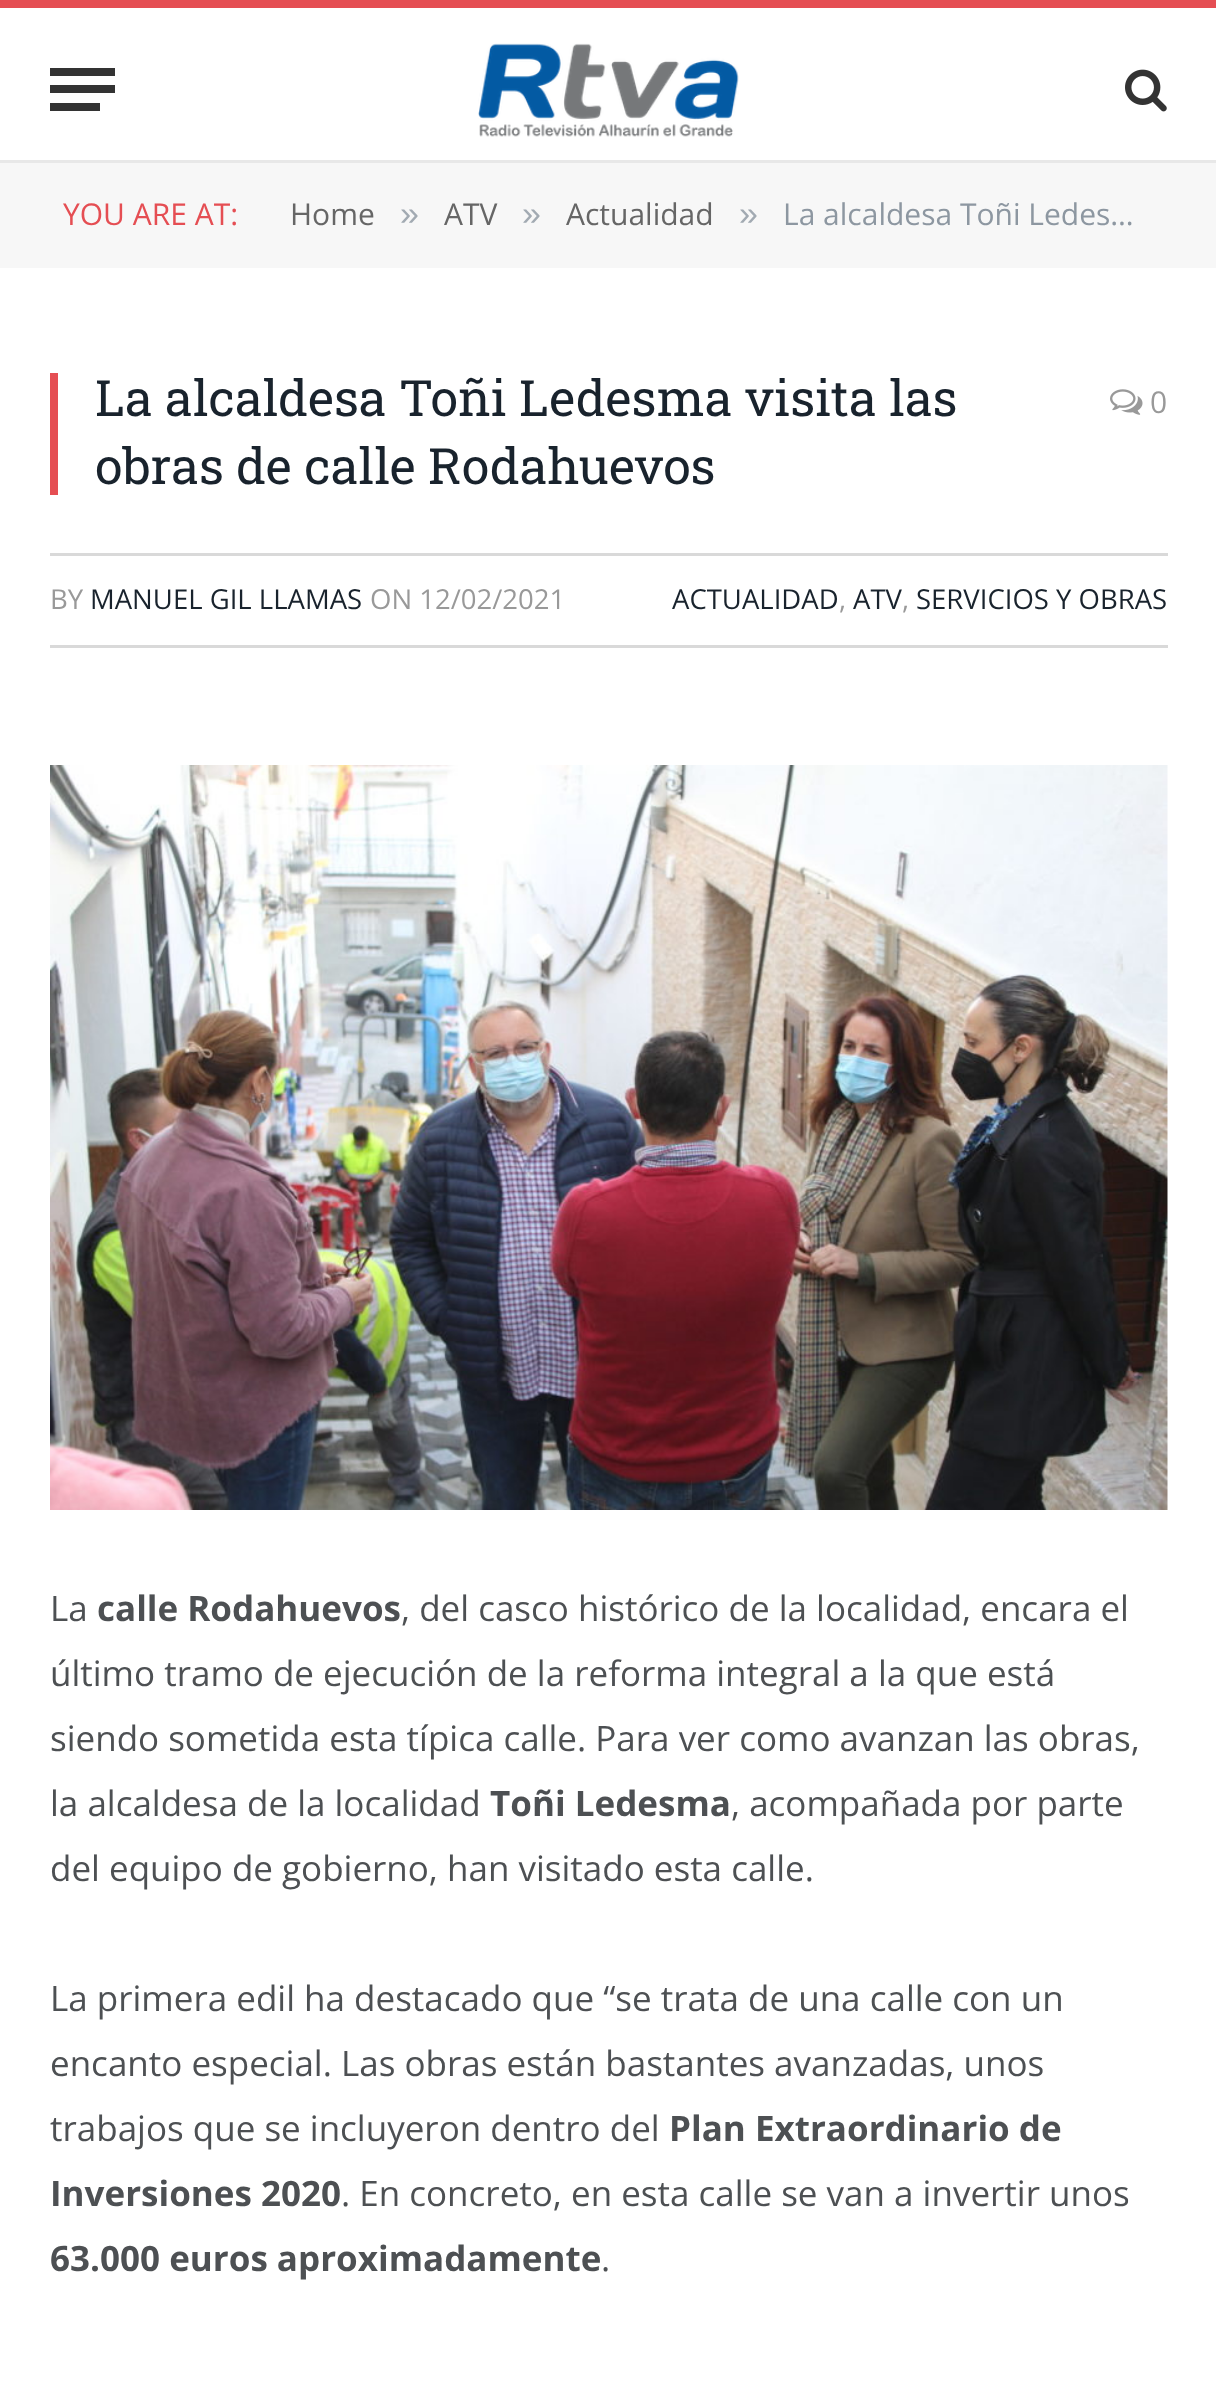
<!DOCTYPE html>
<meta charset="utf-8">
<style>body { margin: 0 } canvas { display: block }</style>
<canvas id="canvas" width="1216" height="2394"></canvas>
<script type="module">
  const canvas = document.getElementById("canvas");
  const g = canvas.getContext("2d");
  g.miterLimit = 4;
  g.fontKerning = "normal";
  function drawText(s, x, y, [font, color]) {
    g.font = font;
    g.fillStyle = color;
    g.fillText(s, x, y);
  }
  function fillBox(x, y, w, h, color) {
    g.fillStyle = color;
    g.fillRect(x, y, w, h);
  }
  async function drawPicture(src, x, y, w, h) {
    const img = new Image();
    img.src = src;
    await img.decode();
    g.drawImage(img, x, y, w, h);
  }

  const s1 = ["30px Open Sans", "#E54E53"];
  const s2 = ["30px Open Sans", "#666666"];
  const s3 = ["34px Liberation Sans", "#A2AAB2"];
  const s4 = ["30px Open Sans", "#8D97A1"];
  const s5 = ["50px Roboto Slab", "#19232D"];
  const s6 = ["30px Open Sans", "#999999"];
  const s7 = ["27.5px Open Sans", "#999999"];
  const s8 = ["27.5px Open Sans", "#19232D"];
  const s9 = ["35px Open Sans", "#4D5053"];
  const s10 = ["bold 35px Open Sans", "#4D5053"];

  fillBox(0, 0, 1216, 2394, "#FFFFFF");
  fillBox(0, 0, 1216, 8, "#E54E53");
  fillBox(0, 160, 1216, 3, "#E8E8E8");
  fillBox(50, 103, 50, 8, "#333333");
  fillBox(50, 68, 65, 8, "#333333");
  fillBox(50, 85, 65, 8, "#333333");
  await drawPicture("pic1.png", 478, 43, 261, 94);
  await drawPicture("pic2.png", 1125, 69, 42, 43);
  fillBox(0, 163, 1216, 105, "#F7F7F7");
  drawText("YOU ARE AT:", 63, 225, s1);
  drawText("Home", 290, 225, s2);
  drawText("»", 400, 225, s3);
  drawText("ATV", 444, 225, s2);
  drawText("»", 522, 225, s3);
  drawText("Actualidad", 566, 225, s2);
  drawText("»", 739, 225, s3);
  drawText("La alcaldesa Toñi Ledes…", 783, 225, s4);
  fillBox(50, 373, 8, 122, "#E54E53");
  drawText("La alcaldesa Toñi Ledesma visita las", 95, 416, s5);
  drawText("obras de calle Rodahuevos", 95, 484, s5);
  await drawPicture("pic3.png", 1110, 389, 33, 26);
  drawText("0", 1150, 413, s6);
  fillBox(50, 553, 1118, 3, "#D9D9D9");
  fillBox(50, 645, 1118, 3, "#D9D9D9");
  drawText("BY", 50, 609, s7);
  drawText("MANUEL GIL LLAMAS", 90, 609, s8);
  drawText("ON 12/02/2021", 370, 609, s7);
  drawText("ACTUALIDAD", 672, 609, s8);
  drawText(",", 839, 609, s7);
  drawText("ATV", 853, 609, s8);
  drawText(",", 902, 609, s7);
  drawText("SERVICIOS Y OBRAS", 916, 609, s8);
  await drawPicture("pic4.png", 50, 765, 1118, 745);
  drawText("La", 50, 1621, s9);
  drawText("calle Rodahuevos", 97, 1621, s10);
  drawText(", del casco histórico de la localidad, encara el", 401, 1621, s9);
  drawText("último tramo de ejecución de la reforma integral a la que está", 50, 1686, s9);
  drawText("siendo sometida esta típica calle. Para ver como avanzan las obras,", 50, 1751, s9);
  drawText("la alcaldesa de la localidad", 50, 1816, s9);
  drawText("Toñi Ledesma", 490, 1816, s10);
  drawText(", acompañada por parte", 731, 1816, s9);
  drawText("del equipo de gobierno, han visitado esta calle.", 50, 1881, s9);
  drawText("La primera edil ha destacado que “se trata de una calle con un", 50, 2011, s9);
  drawText("encanto especial. Las obras están bastantes avanzadas, unos", 50, 2076, s9);
  drawText("trabajos que se incluyeron dentro del", 50, 2141, s9);
  drawText("Plan Extraordinario de", 669, 2141, s10);
  drawText("Inversiones 2020", 50, 2206, s10);
  drawText(". En concreto, en esta calle se van a invertir unos", 341, 2206, s9);
  drawText("63.000 euros aproximadamente", 50, 2271, s10);
  drawText(".", 601, 2271, s9);
</script>
